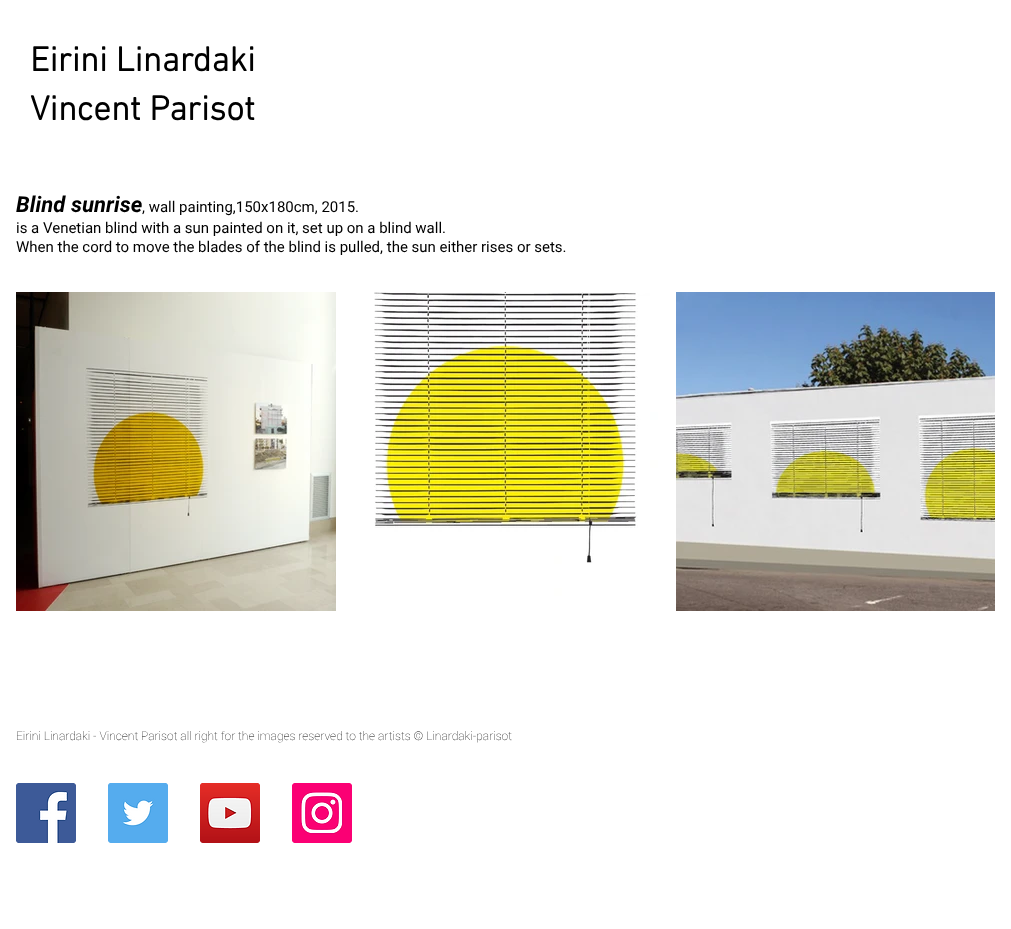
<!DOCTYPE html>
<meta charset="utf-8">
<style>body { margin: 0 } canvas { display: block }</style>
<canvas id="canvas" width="1011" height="929"></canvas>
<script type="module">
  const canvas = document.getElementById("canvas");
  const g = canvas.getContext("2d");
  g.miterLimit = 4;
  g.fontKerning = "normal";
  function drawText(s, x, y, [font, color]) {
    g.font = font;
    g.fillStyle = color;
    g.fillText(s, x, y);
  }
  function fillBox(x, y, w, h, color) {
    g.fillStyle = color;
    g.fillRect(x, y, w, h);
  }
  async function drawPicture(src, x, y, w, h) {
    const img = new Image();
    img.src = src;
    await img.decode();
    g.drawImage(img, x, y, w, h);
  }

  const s1 = ["bold 35px 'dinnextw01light'", "#000000"];
  const s2 = ["italic bold 22px Roboto", "#000000"];
  const s3 = ["15px Roboto", "#000000"];
  const s4 = ["100 12px Roboto", "#000000"];

  fillBox(0, 0, 1011, 929, "#FFFFFF");
  drawText("Eirini Linardaki", 30, 71, s1);
  drawText("Vincent Parisot", 30, 120, s1);
  drawText("Blind sunrise", 16, 212, s2);
  drawText(", wall painting,150x180cm, 2015.", 142, 212, s3);
  drawText("is a Venetian blind with a sun painted on it, set up on a blind wall.", 16, 233, s3);
  drawText("When the cord to move the blades of the blind is pulled, the sun either rises or sets.", 16, 252, s3);
  await drawPicture("pic1.png", 16, 292, 320, 319);
  await drawPicture("pic2.png", 346, 292, 320, 319);
  await drawPicture("pic3.png", 676, 292, 319, 319);
  drawText("Eirini Linardaki - Vincent Parisot all right for the images reserved to the artists © Linardaki-parisot", 16, 740, s4);
  await drawPicture("pic4.png", 16, 783, 60, 60);
  await drawPicture("pic5.png", 108, 783, 60, 60);
  await drawPicture("pic6.png", 200, 783, 60, 60);
  await drawPicture("pic7.png", 292, 783, 60, 60);
</script>
